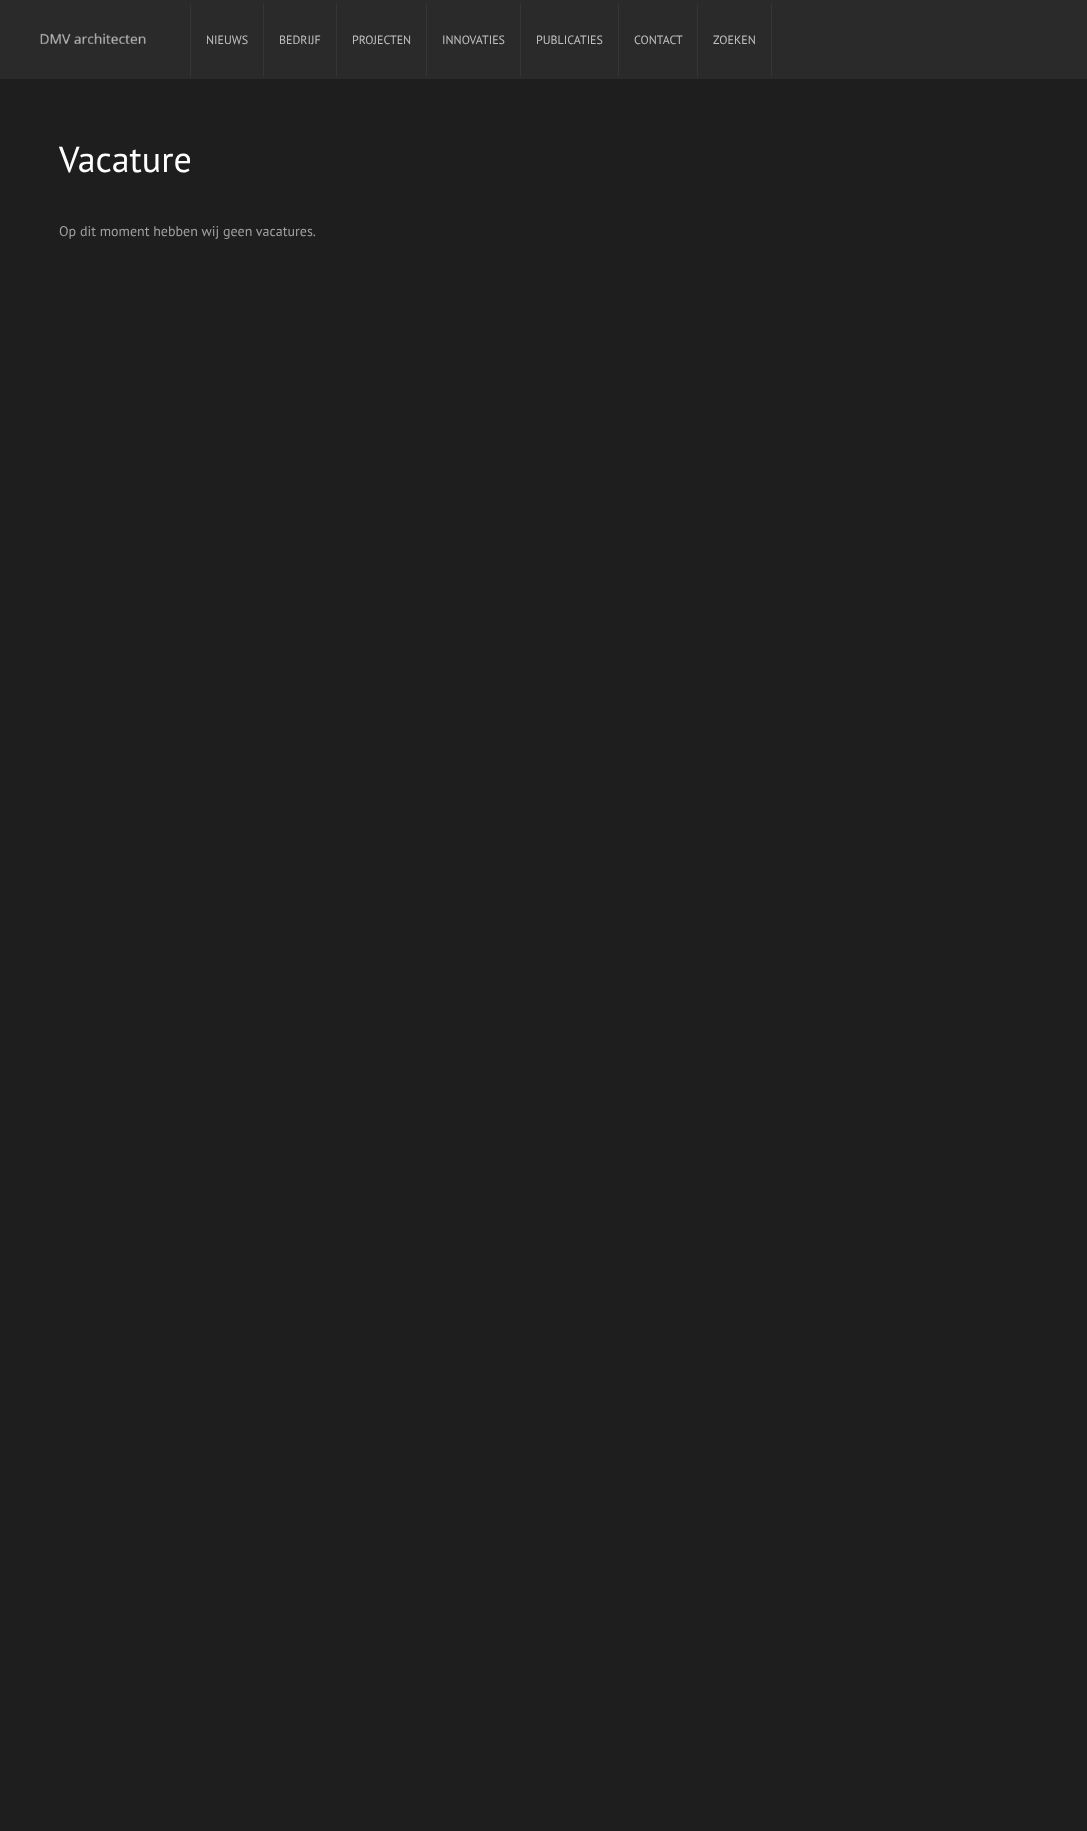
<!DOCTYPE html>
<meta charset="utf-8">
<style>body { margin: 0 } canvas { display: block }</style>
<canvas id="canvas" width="1087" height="1831"></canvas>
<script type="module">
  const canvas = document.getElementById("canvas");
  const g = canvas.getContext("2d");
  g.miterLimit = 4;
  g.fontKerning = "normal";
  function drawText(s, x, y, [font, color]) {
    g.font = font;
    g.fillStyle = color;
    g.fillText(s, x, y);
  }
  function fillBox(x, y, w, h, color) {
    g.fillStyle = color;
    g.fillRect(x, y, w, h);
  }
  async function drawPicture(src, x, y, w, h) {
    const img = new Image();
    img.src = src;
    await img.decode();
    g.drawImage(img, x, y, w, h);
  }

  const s1 = ["12px PT Sans", "#C0C0C0"];
  const s2 = ["36px PT Sans", "#FFFFFF"];
  const s3 = ["14px PT Sans", "#A0A0A0"];

  fillBox(0, 0, 1087, 1831, "#1E1E1E");
  fillBox(0, 0, 1087, 79, "#2A2A2A");
  await drawPicture("pic1.png", 40, 33, 106, 11);
  g.fillStyle = "#353535";
  g.beginPath();
  g.moveTo(264, 4);
  g.lineTo(264, 79);
  g.lineTo(263, 75);
  g.lineTo(263, 4);
  g.closePath();
  g.fill();
  g.beginPath();
  g.moveTo(190, 79);
  g.lineTo(190, 4);
  g.lineTo(191, 4);
  g.lineTo(191, 75);
  g.closePath();
  g.fill();
  drawText("NIEUWS", 206, 44, s1);
  g.fillStyle = "#353535";
  g.beginPath();
  g.moveTo(337, 4);
  g.lineTo(337, 79);
  g.lineTo(336, 75);
  g.lineTo(336, 4);
  g.closePath();
  g.fill();
  drawText("BEDRIJF", 279, 44, s1);
  g.fillStyle = "#353535";
  g.beginPath();
  g.moveTo(427, 4);
  g.lineTo(427, 79);
  g.lineTo(426, 75);
  g.lineTo(426, 4);
  g.closePath();
  g.fill();
  drawText("PROJECTEN", 352, 44, s1);
  g.fillStyle = "#353535";
  g.beginPath();
  g.moveTo(521, 4);
  g.lineTo(521, 79);
  g.lineTo(520, 75);
  g.lineTo(520, 4);
  g.closePath();
  g.fill();
  drawText("INNOVATIES", 442, 44, s1);
  g.fillStyle = "#353535";
  g.beginPath();
  g.moveTo(619, 4);
  g.lineTo(619, 79);
  g.lineTo(618, 75);
  g.lineTo(618, 4);
  g.closePath();
  g.fill();
  drawText("PUBLICATIES", 536, 44, s1);
  g.fillStyle = "#353535";
  g.beginPath();
  g.moveTo(698, 4);
  g.lineTo(698, 79);
  g.lineTo(697, 75);
  g.lineTo(697, 4);
  g.closePath();
  g.fill();
  drawText("CONTACT", 634, 44, s1);
  g.fillStyle = "#353535";
  g.beginPath();
  g.moveTo(772, 4);
  g.lineTo(772, 79);
  g.lineTo(771, 75);
  g.lineTo(771, 4);
  g.closePath();
  g.fill();
  drawText("ZOEKEN", 713, 44, s1);
  drawText("Vacature", 59, 172, s2);
  drawText("Op dit moment hebben wij geen vacatures.", 59, 236, s3);
</script>
